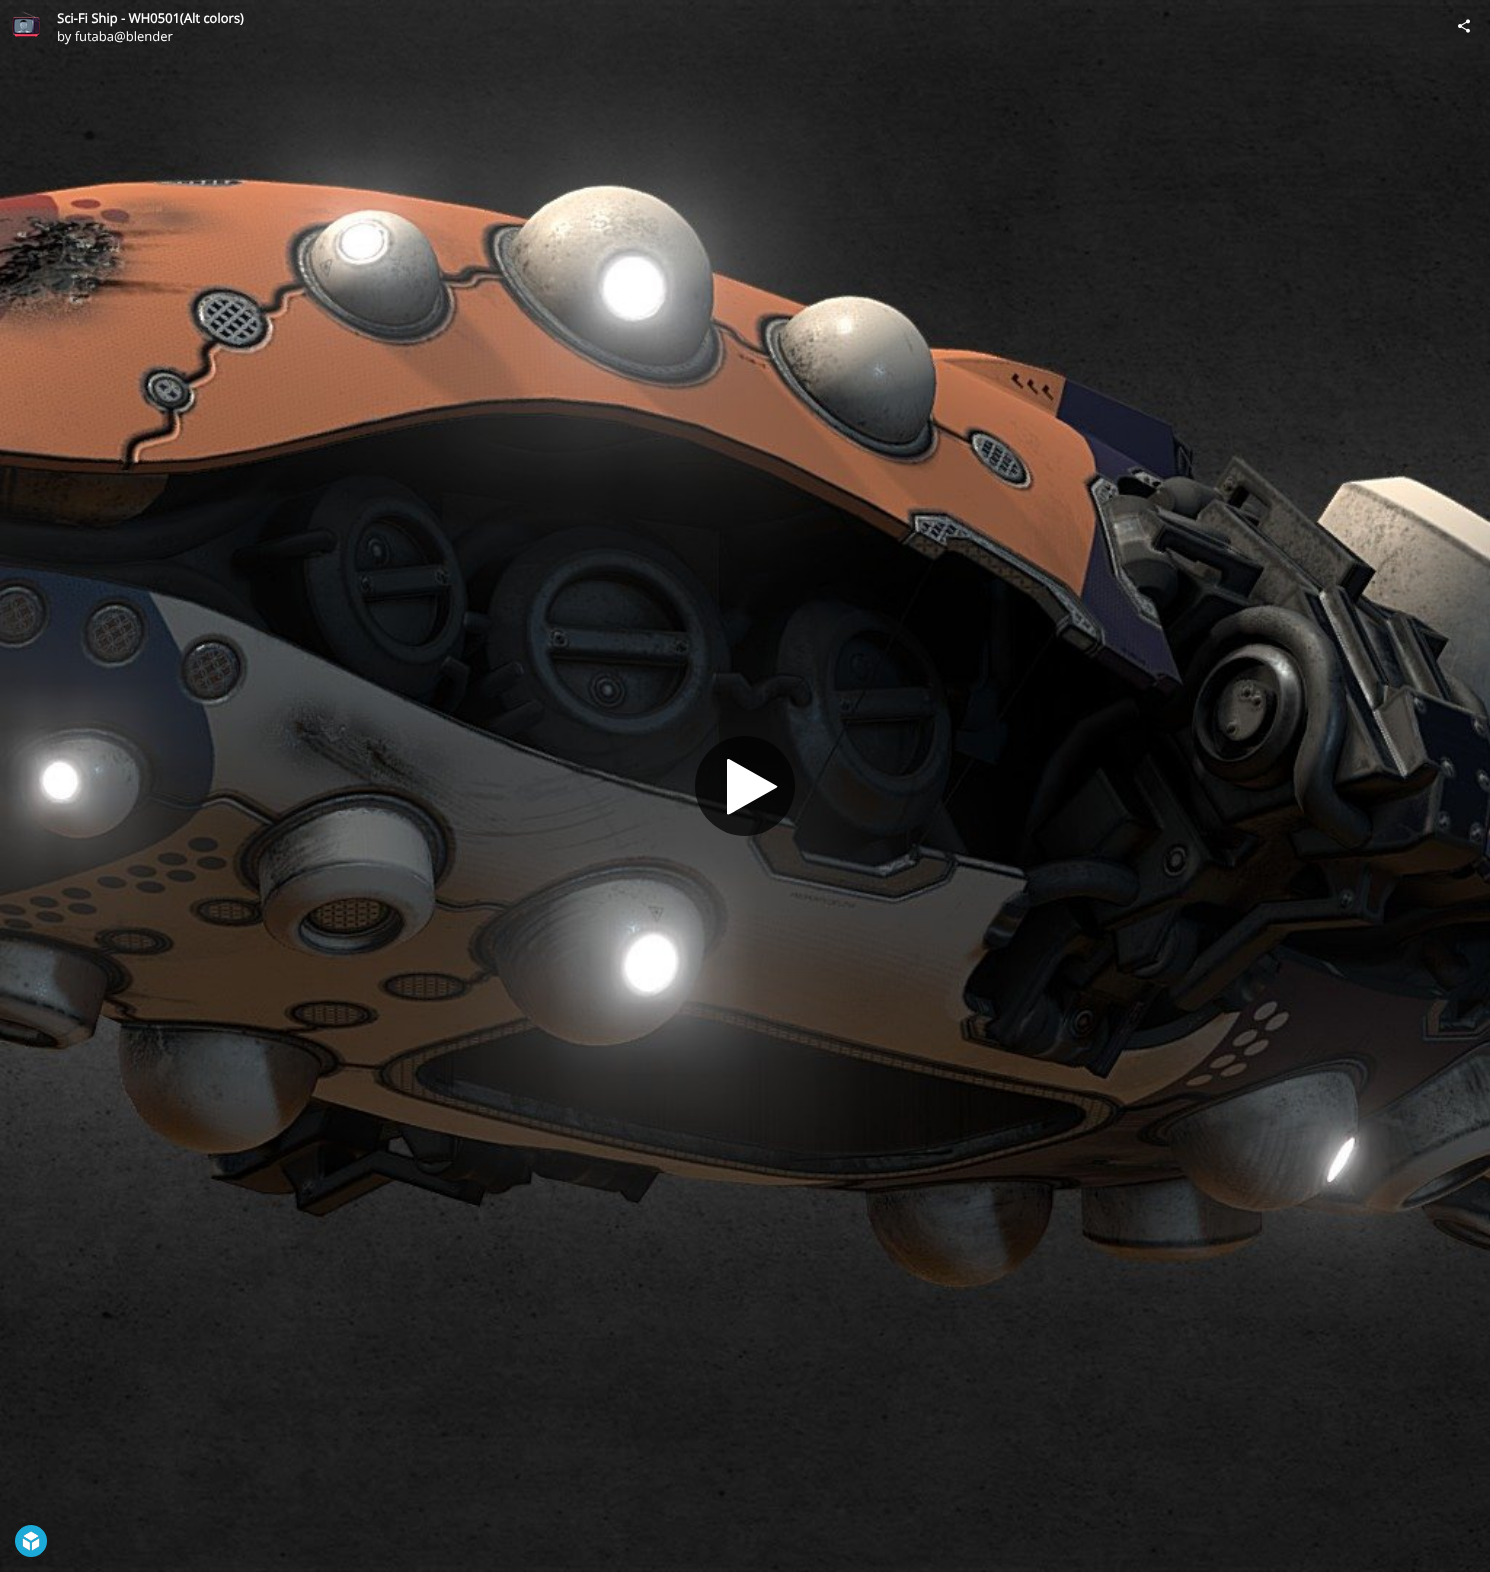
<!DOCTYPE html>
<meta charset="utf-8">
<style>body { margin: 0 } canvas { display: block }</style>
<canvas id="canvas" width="1490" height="1572"></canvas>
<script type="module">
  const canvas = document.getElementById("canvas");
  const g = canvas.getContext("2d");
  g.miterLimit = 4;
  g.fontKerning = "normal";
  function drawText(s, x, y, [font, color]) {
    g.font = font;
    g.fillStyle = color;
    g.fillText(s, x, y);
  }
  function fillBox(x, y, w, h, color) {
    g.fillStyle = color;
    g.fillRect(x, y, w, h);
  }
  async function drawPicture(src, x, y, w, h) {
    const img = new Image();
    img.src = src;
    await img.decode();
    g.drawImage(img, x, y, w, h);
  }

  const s1 = ["bold 13px Open Sans", "#FFFFFF"];
  const s2 = ["13px Open Sans", "#FFFFFF"];

  fillBox(0, 0, 1490, 1572, "#FFFFFF");
  await drawPicture("pic1.png", 0, 0, 1490, 1572);
  g.fillStyle = "rgba(0, 0, 0, 0.7)";
  g.beginPath();
  g.arc(745, 786, 50, 0, Math.PI * 2);
  g.fill();
  g.fillStyle = "#FFFFFF";
  g.beginPath();
  g.moveTo(776, 788);
  g.lineTo(737, 810);
  g.bezierCurveTo(736, 810, 729, 816, 727, 814);
  g.lineTo(727, 760);
  g.bezierCurveTo(727, 759, 728, 759, 729, 759);
  g.lineTo(777, 786);
  g.bezierCurveTo(778, 787, 777, 787, 776, 788);
  g.closePath();
  g.fill();
  await drawPicture("pic2.png", 15, 1525, 32, 32);
  await drawPicture("pic3.png", 12, 11, 28, 26);
  drawText("Sci-Fi Ship - WH0501(Alt colors)", 57, 23, s1);
  drawText("by futaba@blender", 57, 41, s2);
  await drawPicture("pic4.png", 1458, 19, 12, 14);
</script>
